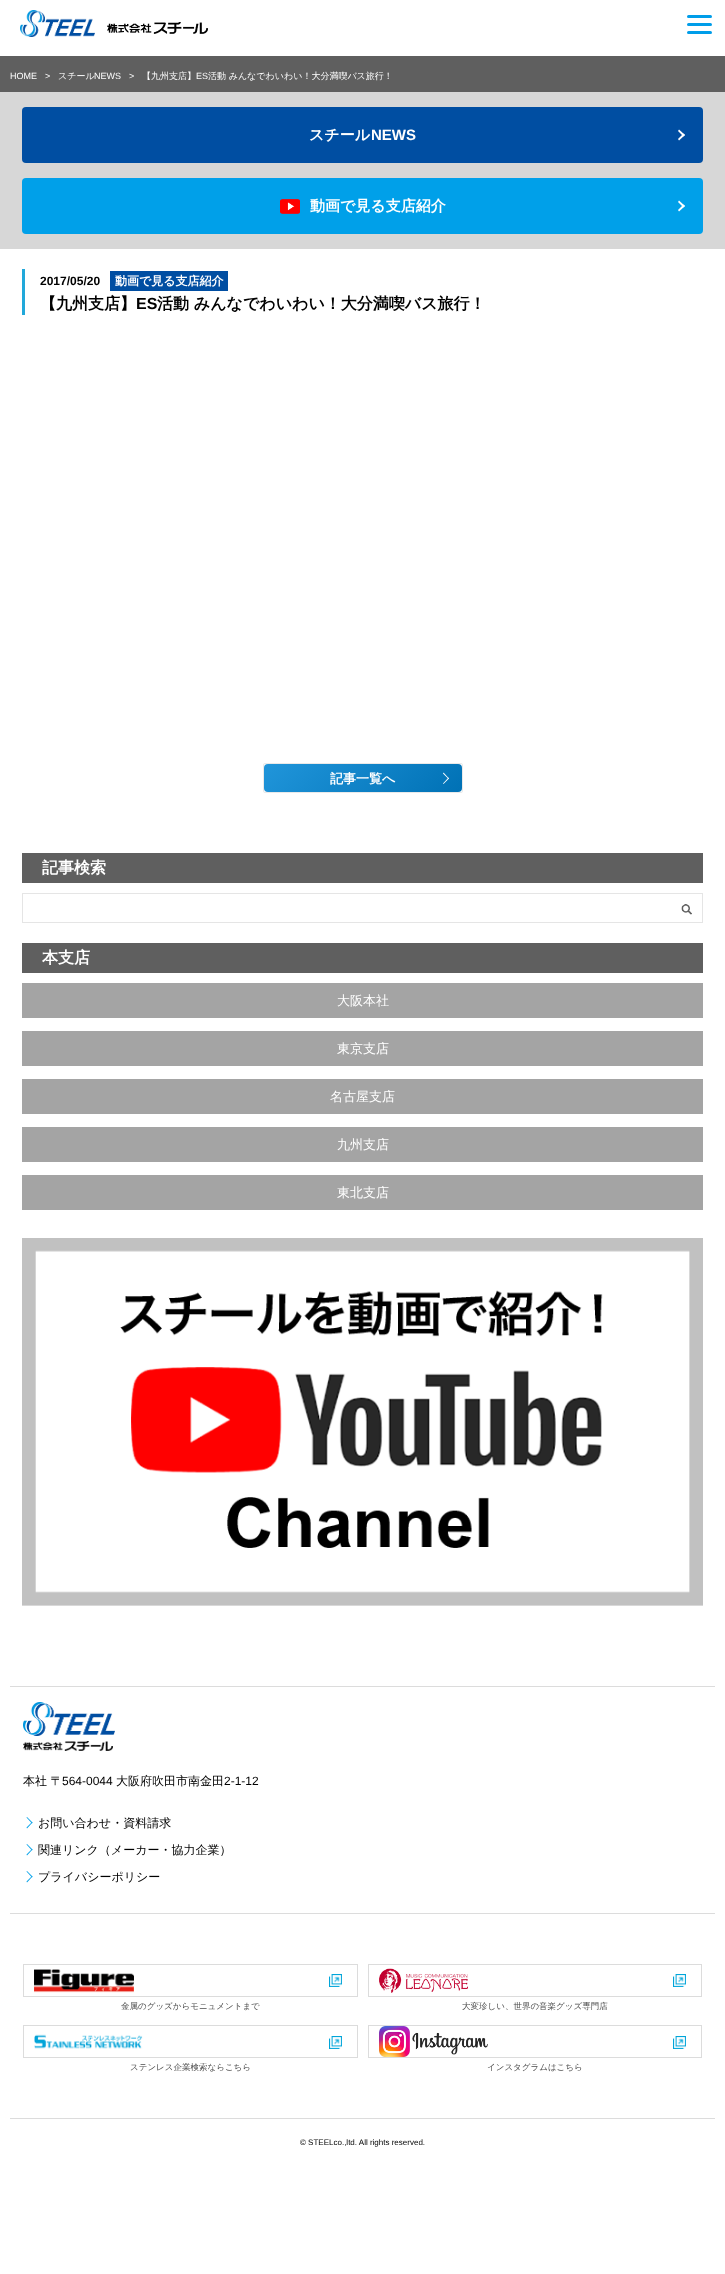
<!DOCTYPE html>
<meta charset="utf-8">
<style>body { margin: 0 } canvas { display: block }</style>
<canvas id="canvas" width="725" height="2274"></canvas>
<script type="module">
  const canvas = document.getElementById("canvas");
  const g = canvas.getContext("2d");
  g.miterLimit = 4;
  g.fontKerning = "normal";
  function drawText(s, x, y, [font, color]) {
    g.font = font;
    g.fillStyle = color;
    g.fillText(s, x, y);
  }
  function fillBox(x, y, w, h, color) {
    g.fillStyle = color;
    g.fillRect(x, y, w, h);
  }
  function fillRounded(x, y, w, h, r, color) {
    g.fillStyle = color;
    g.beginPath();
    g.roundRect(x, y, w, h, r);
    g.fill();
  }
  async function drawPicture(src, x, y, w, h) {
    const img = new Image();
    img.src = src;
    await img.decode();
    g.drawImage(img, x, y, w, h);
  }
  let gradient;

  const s1 = ["9px Liberation Sans", "#FFFFFF"];
  const s2 = ["500 9px WenQuanYi Zen Hei", "#FFFFFF"];
  const s3 = ["bold 15px WenQuanYi Zen Hei", "#FFFFFF"];
  const s4 = ["bold 15px Liberation Sans", "#FFFFFF"];
  const s5 = ["bold 12px Liberation Sans", "#000000"];
  const s6 = ["bold 12px WenQuanYi Zen Hei", "#FFFFFF"];
  const s7 = ["bold 16px WenQuanYi Zen Hei", "#000000"];
  const s8 = ["bold 16px Liberation Sans", "#000000"];
  const s9 = ["bold 13px WenQuanYi Zen Hei", "#FFFFFF"];
  const s10 = ["bold 16px WenQuanYi Zen Hei", "#FFFFFF"];
  const s11 = ["500 13px WenQuanYi Zen Hei", "#FFFFFF"];
  const s12 = ["500 12px WenQuanYi Zen Hei", "#000000"];
  const s13 = ["12px Liberation Sans", "#000000"];
  const s14 = ["500 8.5px WenQuanYi Zen Hei", "#4B4B4B"];
  const s15 = ["8px Liberation Sans", "#000000"];

  fillBox(0, 0, 725, 2274, "#FFFFFF");
  await drawPicture("pic1.png", 20, 10, 75, 27);
  await drawPicture("pic2.png", 107, 22, 101, 12);
  fillRounded(687, 15, 25, 3, 1.5, "#009DE9");
  fillRounded(687, 23, 25, 3, 1.5, "#009DE9");
  fillRounded(687, 31, 25, 3, 1.5, "#009DE9");
  fillBox(0, 56, 725, 36, "#5F5F5F");
  drawText("HOME", 10, 79, s1);
  drawText(">", 45, 79, s1);
  drawText("スチール", 58, 79, s2);
  drawText("NEWS", 94, 79, s1);
  drawText(">", 129, 79, s1);
  drawText("【九州支店】", 142, 79, s2);
  drawText("ES", 196, 79, s1);
  drawText("活動 みんなでわいわい！大分満喫バス旅行！", 208, 79, s2);
  fillBox(0, 92, 725, 157, "#D7D7D7");
  fillRounded(22, 107, 681, 56, 4, "#004EA2");
  drawText("スチール", 309, 140, s3);
  drawText("NEWS", 371, 140, s4);
  g.beginPath();
  g.moveTo(679, 129.5);
  g.lineTo(685, 135);
  g.lineTo(683.5, 136.5);
  g.lineTo(678, 131);
  g.closePath();
  g.fill();
  g.beginPath();
  g.moveTo(683.5, 133.5);
  g.lineTo(685, 135);
  g.lineTo(679, 140.5);
  g.lineTo(678, 139);
  g.closePath();
  g.fill();
  fillRounded(22, 178, 681, 56, 4, "#00A0E9");
  await drawPicture("pic3.png", 280, 199, 20, 15);
  drawText("動画で見る支店紹介", 310, 211, s3);
  g.beginPath();
  g.moveTo(679, 200.5);
  g.lineTo(685, 206);
  g.lineTo(683.5, 207.5);
  g.lineTo(678, 202);
  g.closePath();
  g.fill();
  g.beginPath();
  g.moveTo(683.5, 204.5);
  g.lineTo(685, 206);
  g.lineTo(679, 211.5);
  g.lineTo(678, 210);
  g.closePath();
  g.fill();
  fillBox(22, 269, 3, 46, "#21A8DA");
  drawText("2017/05/20", 40, 285, s5);
  fillBox(110, 271, 118, 20, "#004EA2");
  drawText("動画で見る支店紹介", 115, 285, s6);
  drawText("【九州支店】", 40, 309, s7);
  drawText("ES", 136, 309, s8);
  drawText("活動 みんなでわいわい！大分満喫バス旅行！", 157, 309, s7);
  g.beginPath();
  g.roundRect(263.5, 763.5, 199, 29, 1.5);
  g.strokeStyle = "#E9E9E9";
  g.stroke();
  gradient = g.createLinearGradient(307, 722, 420, 835);
  gradient.addColorStop(0, "#2095DA");
  gradient.addColorStop(1, "#0071B5");
  g.fillStyle = gradient;
  g.beginPath();
  g.roundRect(264, 764, 198, 28, 4);
  g.fill();
  drawText("記事一覧へ", 330, 783, s9);
  g.beginPath();
  g.moveTo(443.5, 772.5);
  g.lineTo(449, 778.5);
  g.lineTo(448.5, 779);
  g.lineTo(443, 773.5);
  g.closePath();
  g.fill();
  g.beginPath();
  g.moveTo(448.5, 777.5);
  g.lineTo(449, 778.5);
  g.lineTo(443.5, 784);
  g.lineTo(443, 783.5);
  g.closePath();
  g.fill();
  fillBox(22, 853, 681, 30, "#5F5F5F");
  drawText("記事検索", 42, 873, s10);
  g.strokeStyle = "#E5E5E5";
  g.strokeRect(22.5, 893.5, 680, 29);
  await drawPicture("pic4.png", 681, 904, 11, 11);
  fillBox(22, 943, 681, 30, "#5F5F5F");
  drawText("本支店", 42, 963, s10);
  fillBox(22, 983, 681, 35, "#A4A4A4");
  drawText("大阪本社", 337, 1005, s11);
  fillBox(22, 1031, 681, 35, "#A4A4A4");
  drawText("東京支店", 337, 1053, s11);
  fillBox(22, 1079, 681, 35, "#A4A4A4");
  drawText("名古屋支店", 330, 1101, s11);
  fillBox(22, 1127, 681, 35, "#A4A4A4");
  drawText("九州支店", 337, 1149, s11);
  fillBox(22, 1175, 681, 35, "#A4A4A4");
  drawText("東北支店", 337, 1197, s11);
  await drawPicture("pic5.png", 22, 1238, 681, 368);
  fillBox(10, 1686, 705, 1, "#DCDCDC");
  fillBox(10, 1913, 705, 1, "#DCDCDC");
  await drawPicture("pic6.png", 23, 1702, 92, 34);
  await drawPicture("pic7.png", 23, 1741, 90, 10);
  drawText("本社 〒", 23, 1785, s12);
  drawText("564-0044", 62, 1785, s13);
  drawText("大阪府吹田市南金田", 116, 1785, s12);
  drawText("2-1-12", 224, 1785, s13);
  g.fillStyle = "#03A1E9";
  g.beginPath();
  g.moveTo(27, 1817);
  g.lineTo(32.5, 1822.5);
  g.lineTo(32, 1823.5);
  g.lineTo(26.5, 1817.5);
  g.closePath();
  g.fill();
  g.beginPath();
  g.moveTo(32, 1822);
  g.lineTo(32.5, 1822.5);
  g.lineTo(27, 1828.5);
  g.lineTo(26.5, 1827.5);
  g.closePath();
  g.fill();
  drawText("お問い合わせ・資料請求", 38, 1827, s12);
  g.fillStyle = "#03A1E9";
  g.beginPath();
  g.moveTo(27, 1844);
  g.lineTo(32.5, 1849.5);
  g.lineTo(32, 1850.5);
  g.lineTo(26.5, 1844.5);
  g.closePath();
  g.fill();
  g.beginPath();
  g.moveTo(32, 1849);
  g.lineTo(32.5, 1849.5);
  g.lineTo(27, 1855.5);
  g.lineTo(26.5, 1854.5);
  g.closePath();
  g.fill();
  drawText("関連リンク（メーカー・協力企業）", 38, 1854, s12);
  g.fillStyle = "#03A1E9";
  g.beginPath();
  g.moveTo(27, 1871);
  g.lineTo(32.5, 1876.5);
  g.lineTo(32, 1877.5);
  g.lineTo(26.5, 1871.5);
  g.closePath();
  g.fill();
  g.beginPath();
  g.moveTo(32, 1876);
  g.lineTo(32.5, 1876.5);
  g.lineTo(27, 1882.5);
  g.lineTo(26.5, 1881.5);
  g.closePath();
  g.fill();
  drawText("プライバシーポリシー", 38, 1881, s12);
  fillBox(10, 2118, 705, 1, "#DCDCDC");
  g.strokeStyle = "#DCDCDC";
  g.strokeRect(23.5, 1964.5, 334, 32);
  await drawPicture("pic8.png", 34, 1969, 100, 24);
  await drawPicture("pic9.png", 329, 1974, 13, 13);
  drawText("金属のグッズからモニュメントまで", 121, 2009, s14);
  g.strokeRect(368.5, 1964.5, 333, 32);
  await drawPicture("pic10.png", 379, 1968, 89, 25);
  await drawPicture("pic9.png", 673, 1974, 13, 13);
  drawText("大変珍しい、世界の音楽グッズ専門店", 462, 2009, s14);
  g.strokeRect(23.5, 2025.5, 334, 32);
  await drawPicture("pic11.png", 34, 2034, 109, 15);
  await drawPicture("pic9.png", 329, 2036, 13, 13);
  drawText("ステンレス企業検索ならこちら", 130, 2070, s14);
  g.strokeRect(368.5, 2025.5, 333, 32);
  await drawPicture("pic12.png", 379, 2026, 109, 31);
  await drawPicture("pic9.png", 673, 2036, 13, 13);
  drawText("インスタグラムはこちら", 487, 2070, s14);
  drawText("© STEELco.,ltd. All rights reserved.", 300, 2145, s15);
</script>
